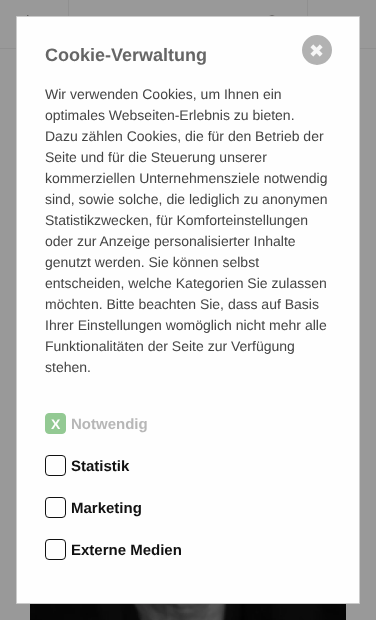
<!DOCTYPE html>
<meta charset="utf-8">
<style>body { margin: 0 } canvas { display: block }</style>
<canvas id="canvas" width="376" height="620"></canvas>
<script type="module">
  const canvas = document.getElementById("canvas");
  const g = canvas.getContext("2d");
  g.miterLimit = 4;
  g.fontKerning = "normal";
  function drawText(s, x, y, [font, color]) {
    g.font = font;
    g.fillStyle = color;
    g.fillText(s, x, y);
  }
  function fillBox(x, y, w, h, color) {
    g.fillStyle = color;
    g.fillRect(x, y, w, h);
  }
  async function drawPicture(src, x, y, w, h) {
    const img = new Image();
    img.src = src;
    await img.decode();
    g.drawImage(img, x, y, w, h);
  }

  const s1 = ["18px DejaVu Sans", "#F6F6F6"];
  const s2 = ["bold 18px Liberation Sans", "#666666"];
  const s3 = ["14px Liberation Sans", "#444444"];
  const s4 = ["bold 14px Liberation Sans", "#FEFEFE"];
  const s5 = ["bold 15px Liberation Sans", "#B7B7B7"];
  const s6 = ["bold 15px Liberation Sans", "#111111"];

  fillBox(0, 0, 376, 620, "#999999");
  fillBox(0, 48, 376, 1, "#909090");
  await drawPicture("pic1.png", 27, 15, 2, 1);
  fillBox(68, 0, 1, 16, "#909090");
  fillBox(307, 0, 1, 16, "#909090");
  g.beginPath();
  g.arc(272, 23, 7, 0, Math.PI * 2);
  g.strokeStyle = "#332F2C";
  g.lineWidth = 1.1;
  g.stroke();
  g.fillStyle = "#FEFEFE";
  g.beginPath();
  g.rect(16.5, 16.5, 343, 587);
  g.fill();
  g.strokeStyle = "#CBCBCB";
  g.lineWidth = 1;
  g.stroke();
  g.fillStyle = "#B2B2B2";
  g.beginPath();
  g.arc(317, 50, 14, 0, Math.PI * 2);
  g.fill();
  g.strokeStyle = "#B2B2B2";
  g.lineWidth = 2;
  g.stroke();
  drawText("✖", 309, 57, s1);
  drawText("Cookie-Verwaltung", 45, 61, s2);
  drawText("Wir verwenden Cookies, um Ihnen ein", 45, 99, s3);
  drawText("optimales Webseiten-Erlebnis zu bieten.", 45, 120, s3);
  drawText("Dazu zählen Cookies, die für den Betrieb der", 45, 141, s3);
  drawText("Seite und für die Steuerung unserer", 45, 162, s3);
  drawText("kommerziellen Unternehmensziele notwendig", 45, 183, s3);
  drawText("sind, sowie solche, die lediglich zu anonymen", 45, 204, s3);
  drawText("Statistikzwecken, für Komforteinstellungen", 45, 225, s3);
  drawText("oder zur Anzeige personalisierter Inhalte", 45, 246, s3);
  drawText("genutzt werden. Sie können selbst", 45, 267, s3);
  drawText("entscheiden, welche Kategorien Sie zulassen", 45, 288, s3);
  drawText("möchten. Bitte beachten Sie, dass auf Basis", 45, 309, s3);
  drawText("Ihrer Einstellungen womöglich nicht mehr alle", 45, 330, s3);
  drawText("Funktionalitäten der Seite zur Verfügung", 45, 351, s3);
  drawText("stehen.", 45, 372, s3);
  g.fillStyle = "#93C993";
  g.beginPath();
  g.roundRect(45.5, 413.5, 20, 20, 3.5);
  g.fill();
  g.strokeStyle = "#93C993";
  g.lineWidth = 1;
  g.stroke();
  drawText("X", 51, 429, s4);
  drawText("Notwendig", 71, 429, s5);
  g.beginPath();
  g.roundRect(45.5, 455.5, 20, 20, 3.5);
  g.strokeStyle = "#111111";
  g.stroke();
  drawText("Statistik", 71, 471, s6);
  g.beginPath();
  g.roundRect(45.5, 497.5, 20, 20, 3.5);
  g.stroke();
  drawText("Marketing", 71, 513, s6);
  g.beginPath();
  g.roundRect(45.5, 539.5, 20, 20, 3.5);
  g.stroke();
  drawText("Externe Medien", 71, 555, s6);
  await drawPicture("pic2.png", 30, 604, 316, 16);
</script>
